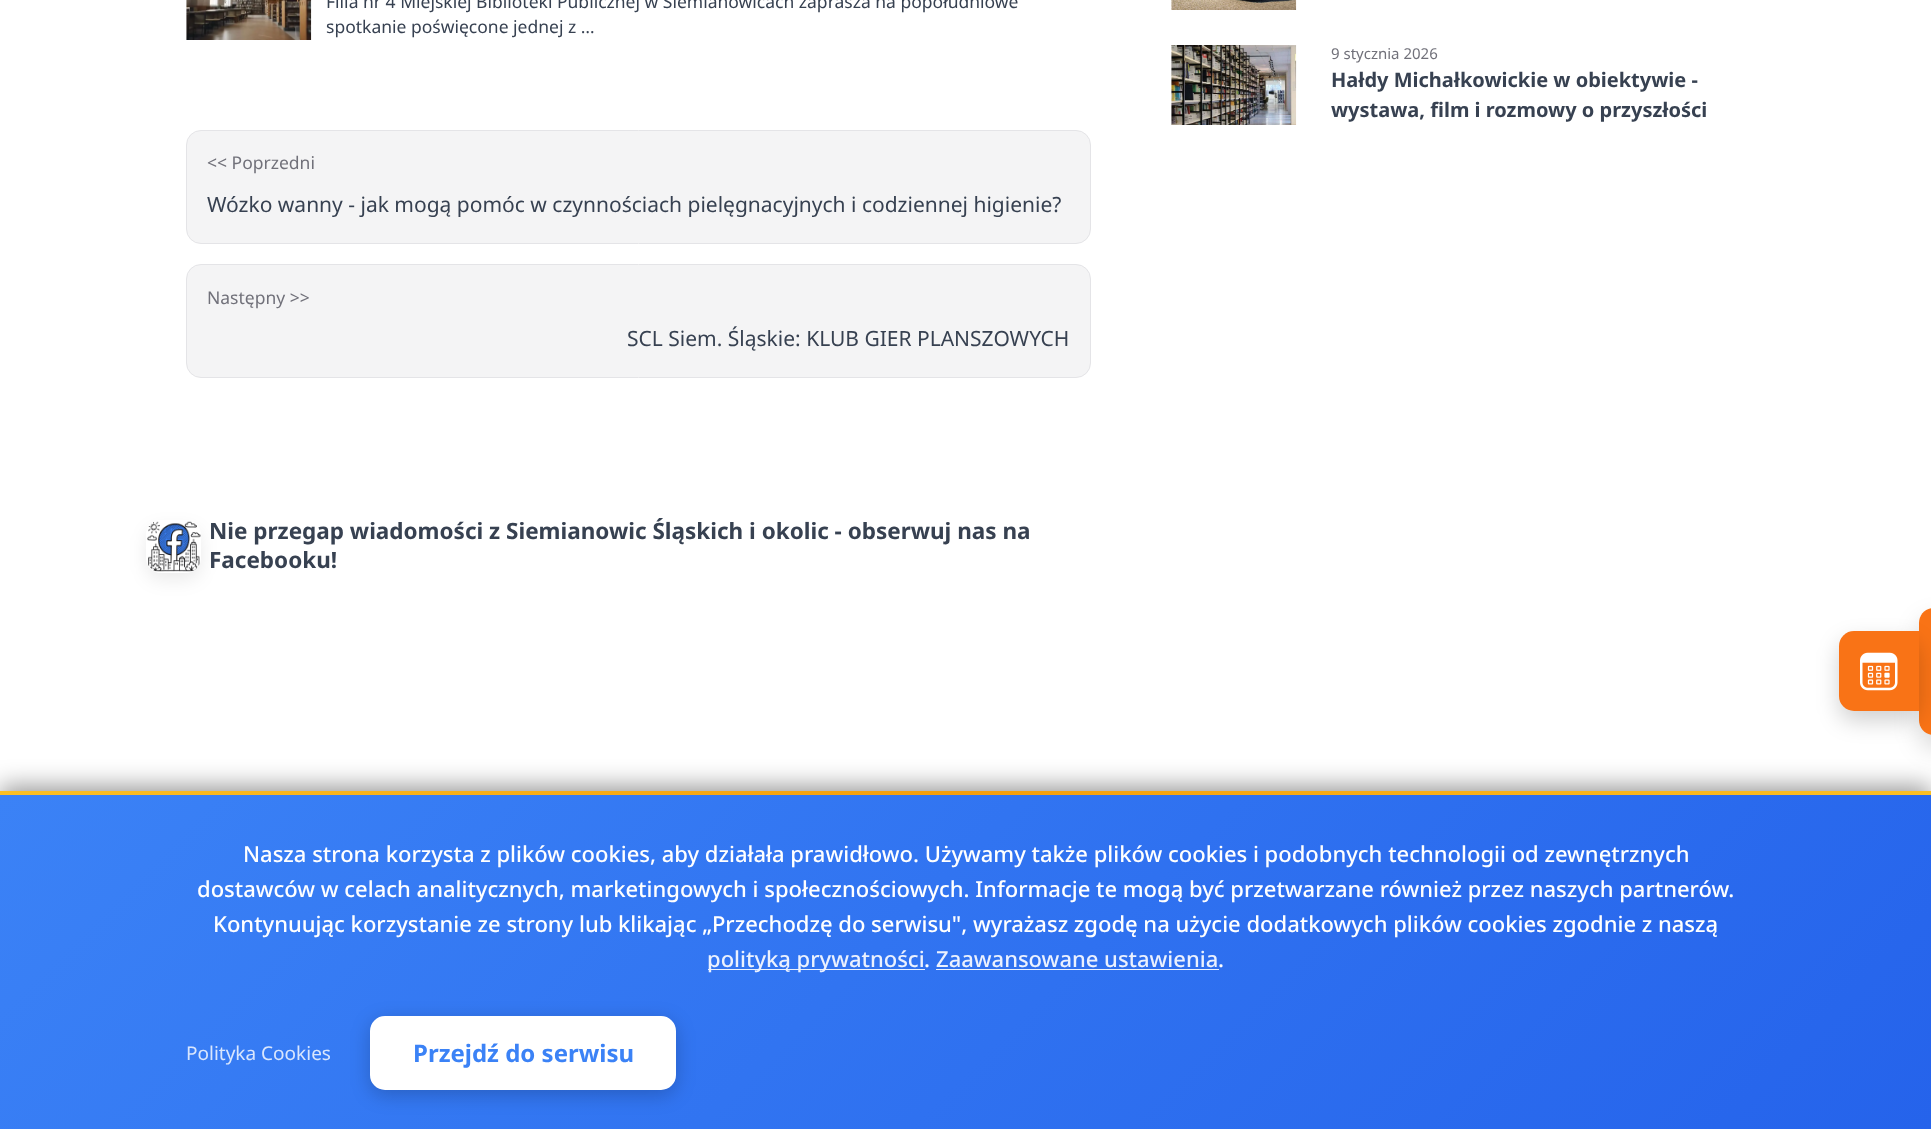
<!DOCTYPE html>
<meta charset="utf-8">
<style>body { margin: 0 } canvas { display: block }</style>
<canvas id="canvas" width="1931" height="1129"></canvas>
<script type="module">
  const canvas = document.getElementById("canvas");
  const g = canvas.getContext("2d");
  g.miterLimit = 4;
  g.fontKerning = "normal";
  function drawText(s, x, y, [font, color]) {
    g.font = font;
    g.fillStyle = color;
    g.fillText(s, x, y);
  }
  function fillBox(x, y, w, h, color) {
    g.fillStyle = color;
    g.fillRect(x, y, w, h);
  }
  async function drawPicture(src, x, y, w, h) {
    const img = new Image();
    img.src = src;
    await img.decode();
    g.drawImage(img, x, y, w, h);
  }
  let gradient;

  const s1 = ["17.5px Noto Sans", "#374151"];
  const s2 = ["17.5px Noto Sans", "#71717A"];
  const s3 = ["21px Noto Sans", "#374151"];
  const s4 = ["bold 22.5px Noto Sans", "#374151"];
  const s5 = ["15px Noto Sans", "#71717A"];
  const s6 = ["bold 20px Noto Sans", "#374151"];
  const s7 = ["500 22px Noto Sans", "#FFFFFF"];
  const s8 = ["500 22px Noto Sans", "#EBF1FE"];
  const s9 = ["19px Noto Sans", "#D9E6FD"];
  const s10 = ["bold 24px Noto Sans", "#3B82F6"];

  fillBox(0, 0, 1931, 1129, "#FFFFFF");
  await drawPicture("pic1.png", 186, 0, 126, 40);
  drawText("Filia nr 4 Miejskiej Biblioteki Publicznej w Siemianowicach zaprasza na popołudniowe", 326, 8, s1);
  drawText("spotkanie poświęcone jednej z …", 326, 33, s1);
  g.fillStyle = "#F4F4F5";
  g.beginPath();
  g.roundRect(186.5, 130.5, 904, 113, 14.5);
  g.fill();
  g.strokeStyle = "#E4E4E7";
  g.stroke();
  drawText("<< Poprzedni", 207, 169, s2);
  drawText("Wózko wanny - jak mogą pomóc w czynnościach pielęgnacyjnych i codziennej higienie?", 207, 212, s3);
  g.fillStyle = "#F4F4F5";
  g.beginPath();
  g.roundRect(186.5, 264.5, 904, 113, 14.5);
  g.fill();
  g.stroke();
  drawText("Następny >>", 207, 304, s2);
  drawText("SCL Siem. Śląskie: KLUB GIER PLANSZOWYCH", 627, 346, s3);
  g.save();
  g.beginPath();
  g.moveTo(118, 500);
  g.lineTo(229, 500);
  g.lineTo(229, 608);
  g.lineTo(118, 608);
  g.closePath();
  g.moveTo(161, 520);
  g.lineTo(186, 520);
  g.bezierCurveTo(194.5, 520, 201, 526.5, 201, 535);
  g.lineTo(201, 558);
  g.bezierCurveTo(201, 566.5, 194.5, 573, 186, 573);
  g.lineTo(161, 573);
  g.bezierCurveTo(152.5, 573, 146, 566.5, 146, 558);
  g.lineTo(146, 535);
  g.bezierCurveTo(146, 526.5, 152.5, 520, 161, 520);
  g.closePath();
  g.clip("evenodd");
  g.fillStyle = "rgba(0, 0, 0, 0.08)";
  g.filter = "blur(9px)";
  g.beginPath();
  g.roundRect(146, 528, 55, 52, 15);
  g.fill();
  g.filter = "none";
  g.restore();
  await drawPicture("pic2.png", 147, 521, 54, 51);
  drawText("Nie przegap wiadomości z Siemianowic Śląskich i okolic - obserwuj nas na", 209, 539, s4);
  drawText("Facebooku!", 209, 568, s4);
  await drawPicture("pic3.png", 1171, 0, 126, 10);
  await drawPicture("pic4.png", 1171, 45, 126, 80);
  drawText("9 stycznia 2026", 1331, 59, s5);
  drawText("Hałdy Michałkowickie w obiektywie -", 1331, 87, s6);
  drawText("wystawa, film i rozmowy o przyszłości", 1331, 117, s6);
  g.fillStyle = "rgba(0, 0, 0, 0.15)";
  g.filter = "blur(12.5px)";
  g.beginPath();
  g.roundRect(1919, 620, 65, 128, 15);
  g.fill();
  g.filter = "none";
  g.fillStyle = "#F97316";
  g.beginPath();
  g.moveTo(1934, 608);
  g.lineTo(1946, 608);
  g.lineTo(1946, 735);
  g.lineTo(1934, 735);
  g.bezierCurveTo(1925.5, 735, 1919, 728.5, 1919, 720);
  g.lineTo(1919, 623);
  g.bezierCurveTo(1919, 614.5, 1925.5, 608, 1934, 608);
  g.closePath();
  g.fill();
  g.fillStyle = "rgba(0, 0, 0, 0.18)";
  g.filter = "blur(11px)";
  g.beginPath();
  g.roundRect(1839, 641, 80, 80, 15);
  g.fill();
  g.filter = "none";
  g.fillStyle = "#F97316";
  g.beginPath();
  g.roundRect(1839, 631, 80, 80, [15, 0, 0, 15]);
  g.fill();
  await drawPicture("pic5.png", 1860, 652, 38, 39);
  g.fillStyle = "rgba(0, 0, 0, 0.4)";
  g.filter = "blur(12.5px)";
  g.beginPath();
  g.rect(0, 786, 1931, 339);
  g.fill();
  g.filter = "none";
  gradient = g.createLinearGradient(399, 396, 1532, 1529);
  gradient.addColorStop(0, "#3B82F6");
  gradient.addColorStop(1, "#2563EB");
  g.fillStyle = gradient;
  g.fillRect(0, 795, 1931, 334);
  gradient = g.createLinearGradient(399, 396, 1532, 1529);
  gradient.addColorStop(0, "#EBF3FE");
  gradient.addColorStop(1, "#E9EFFD");
  g.fillStyle = gradient;
  g.fillRect(936, 969, 283, 1);
  g.fillRect(708, 969, 217, 1);
  gradient = g.createLinearGradient(0, 793, 1931, 793);
  gradient.addColorStop(0, "#FBBF24");
  gradient.addColorStop(0.5, "#F59E0B");
  gradient.addColorStop(1, "#FBBF24");
  g.fillStyle = gradient;
  g.fillRect(0, 791, 1931, 4);
  drawText("Nasza strona korzysta z plików cookies, aby działała prawidłowo. Używamy także plików cookies i podobnych technologii od zewnętrznych", 243, 862, s7);
  drawText("dostawców w celach analitycznych, marketingowych i społecznościowych. Informacje te mogą być przetwarzane również przez naszych partnerów.", 197, 897, s7);
  drawText("Kontynuując korzystanie ze strony lub klikając „Przechodzę do serwisu\", wyrażasz zgodę na użycie dodatkowych plików cookies zgodnie z naszą", 213, 932, s7);
  drawText("polityką prywatności", 707, 967, s8);
  drawText(".", 924, 967, s7);
  drawText("Zaawansowane ustawienia", 936, 967, s8);
  drawText(".", 1218, 967, s7);
  drawText("Polityka Cookies", 186, 1060, s9);
  g.fillStyle = "rgba(0, 0, 0, 0.2)";
  g.filter = "blur(9.5px)";
  g.beginPath();
  g.roundRect(370, 1021, 306, 74, 15);
  g.fill();
  g.filter = "none";
  g.fillStyle = "#FFFFFF";
  g.beginPath();
  g.roundRect(371.5, 1017.5, 303, 71, 13.5);
  g.fill();
  g.strokeStyle = "#FFFFFF";
  g.lineWidth = 3;
  g.stroke();
  drawText("Przejdź do serwisu", 413, 1062, s10);
</script>
